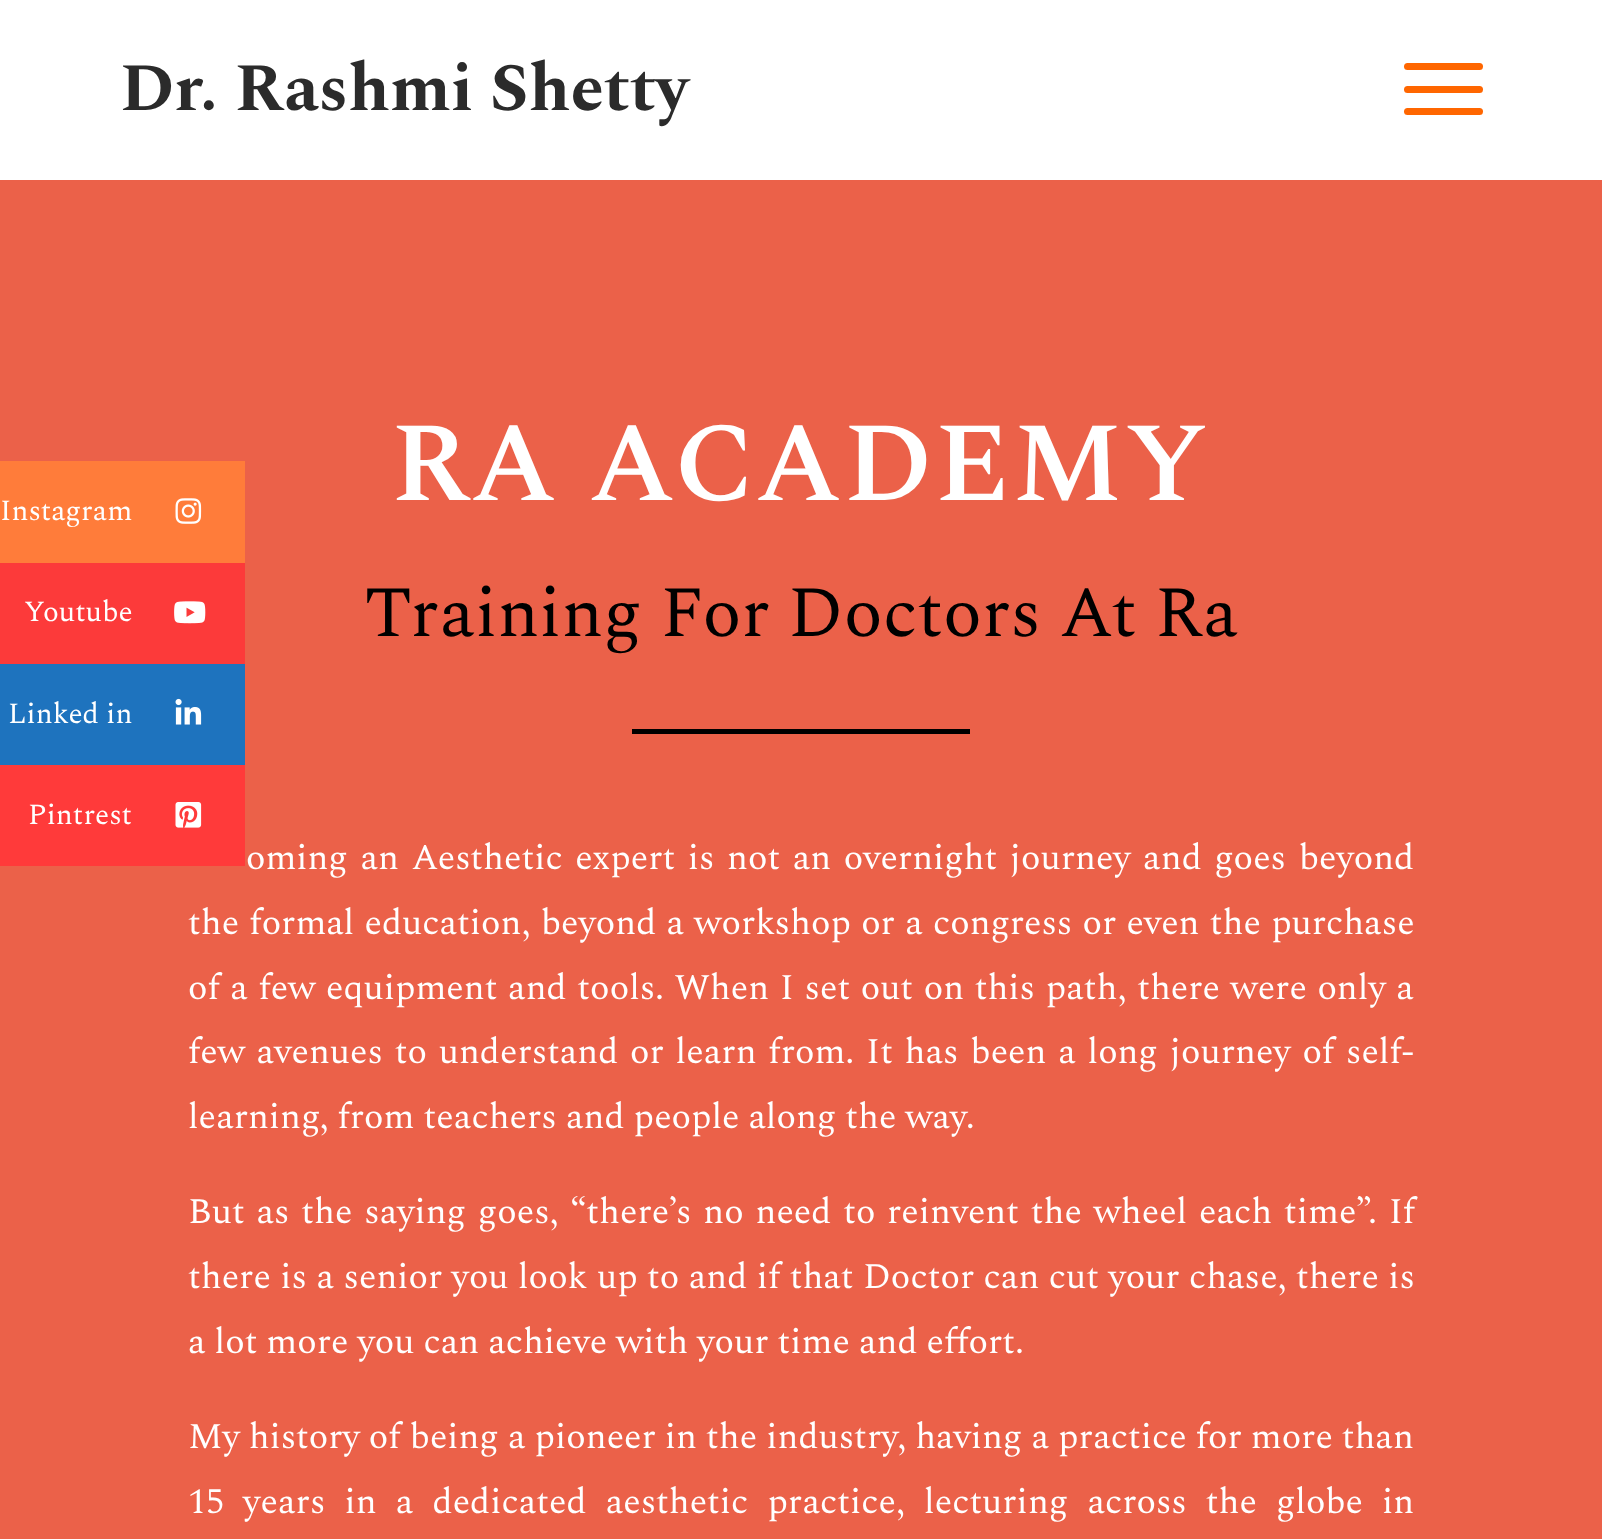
<!DOCTYPE html>
<meta charset="utf-8">
<style>body { margin: 0 } canvas { display: block }</style>
<canvas id="canvas" width="1602" height="1539"></canvas>
<script type="module">
  const canvas = document.getElementById("canvas");
  const g = canvas.getContext("2d");
  g.miterLimit = 4;
  g.fontKerning = "normal";
  function drawText(s, x, y, [font, color]) {
    g.font = font;
    g.fillStyle = color;
    g.fillText(s, x, y);
  }
  function fillBox(x, y, w, h, color) {
    g.fillStyle = color;
    g.fillRect(x, y, w, h);
  }
  function fillRounded(x, y, w, h, r, color) {
    g.fillStyle = color;
    g.beginPath();
    g.roundRect(x, y, w, h, r);
    g.fill();
  }
  async function drawPicture(src, x, y, w, h) {
    const img = new Image();
    img.src = src;
    await img.decode();
    g.drawImage(img, x, y, w, h);
  }

  const s1 = ["29.25px Spectral", "#FFFFFF"];
  const s2 = ["bold 67.5px Spectral", "#2B2B2B"];
  const s3 = ["600 112.5px Spectral", "#FFFFFF"];
  const s4 = ["72px Spectral", "#000000"];
  const s5 = ["36px Spectral", "#FFFFFF"];

  fillBox(0, 0, 1602, 1539, "#FFFFFF");
  fillBox(0, 180, 1602, 1359, "#EB6149");
  fillBox(0, 461, 245, 102, "#FF7C3A");
  drawText("Instagram", 0, 520, s1);
  await drawPicture("pic1.png", 175, 498, 27, 26);
  fillBox(0, 563, 245, 101, "#FC3A3A");
  drawText("Youtube", 24, 621, s1);
  await drawPicture("pic2.png", 174, 601, 32, 23);
  fillBox(0, 664, 245, 101, "#1E73BE");
  drawText("Linked in", 8, 723, s1);
  await drawPicture("pic3.png", 175, 698, 27, 27);
  fillBox(0, 765, 245, 101, "#FF3A3A");
  drawText("Pintrest", 28, 824, s1);
  await drawPicture("pic4.png", 175, 802, 27, 26);
  drawText("Dr. Rashmi Shetty", 120, 110, s2);
  fillRounded(1404, 86, 79, 7, 3.5, "#FF6600");
  fillRounded(1404, 63, 79, 7, 3.5, "#FF6600");
  fillRounded(1404, 108, 79, 7, 3.5, "#FF6600");
  g.letterSpacing = "2.25px";
  drawText("RA ACADEMY", 391, 500, s3);
  g.letterSpacing = "0px";
  drawText("Training For Doctors At Ra", 364, 636, s4);
  fillBox(632, 729, 338, 5, "#000000");
  g.wordSpacing = "3.5px";
  drawText("oming an Aesthetic expert is not an overnight journey and goes beyond", 246, 869, s5);
  g.wordSpacing = "1.25px";
  drawText("the formal education, beyond a workshop or a congress or even the purchase", 188, 934, s5);
  g.wordSpacing = "1.6px";
  drawText("of a few equipment and tools. When I set out on this path, there were only a", 188, 999, s5);
  g.wordSpacing = "2.75px";
  drawText("few avenues to understand or learn from. It has been a long journey of self-", 188, 1063, s5);
  g.wordSpacing = "0px";
  drawText("learning, from teachers and people along the way.", 188, 1128, s5);
  g.wordSpacing = "2.75px";
  drawText("But as the saying goes, “there’s no need to reinvent the wheel each time”. If", 188, 1223, s5);
  g.wordSpacing = "0.4px";
  drawText("there is a senior you look up to and if that Doctor can cut your chase, there is", 188, 1288, s5);
  g.wordSpacing = "0px";
  drawText("a lot more you can achieve with your time and effort.", 188, 1353, s5);
  drawText("My history of being a pioneer in the industry, having a practice for more than", 188, 1448, s5);
  g.wordSpacing = "10.1px";
  drawText("15 years in a dedicated aesthetic practice, lecturing across the globe in", 188, 1513, s5);
</script>
